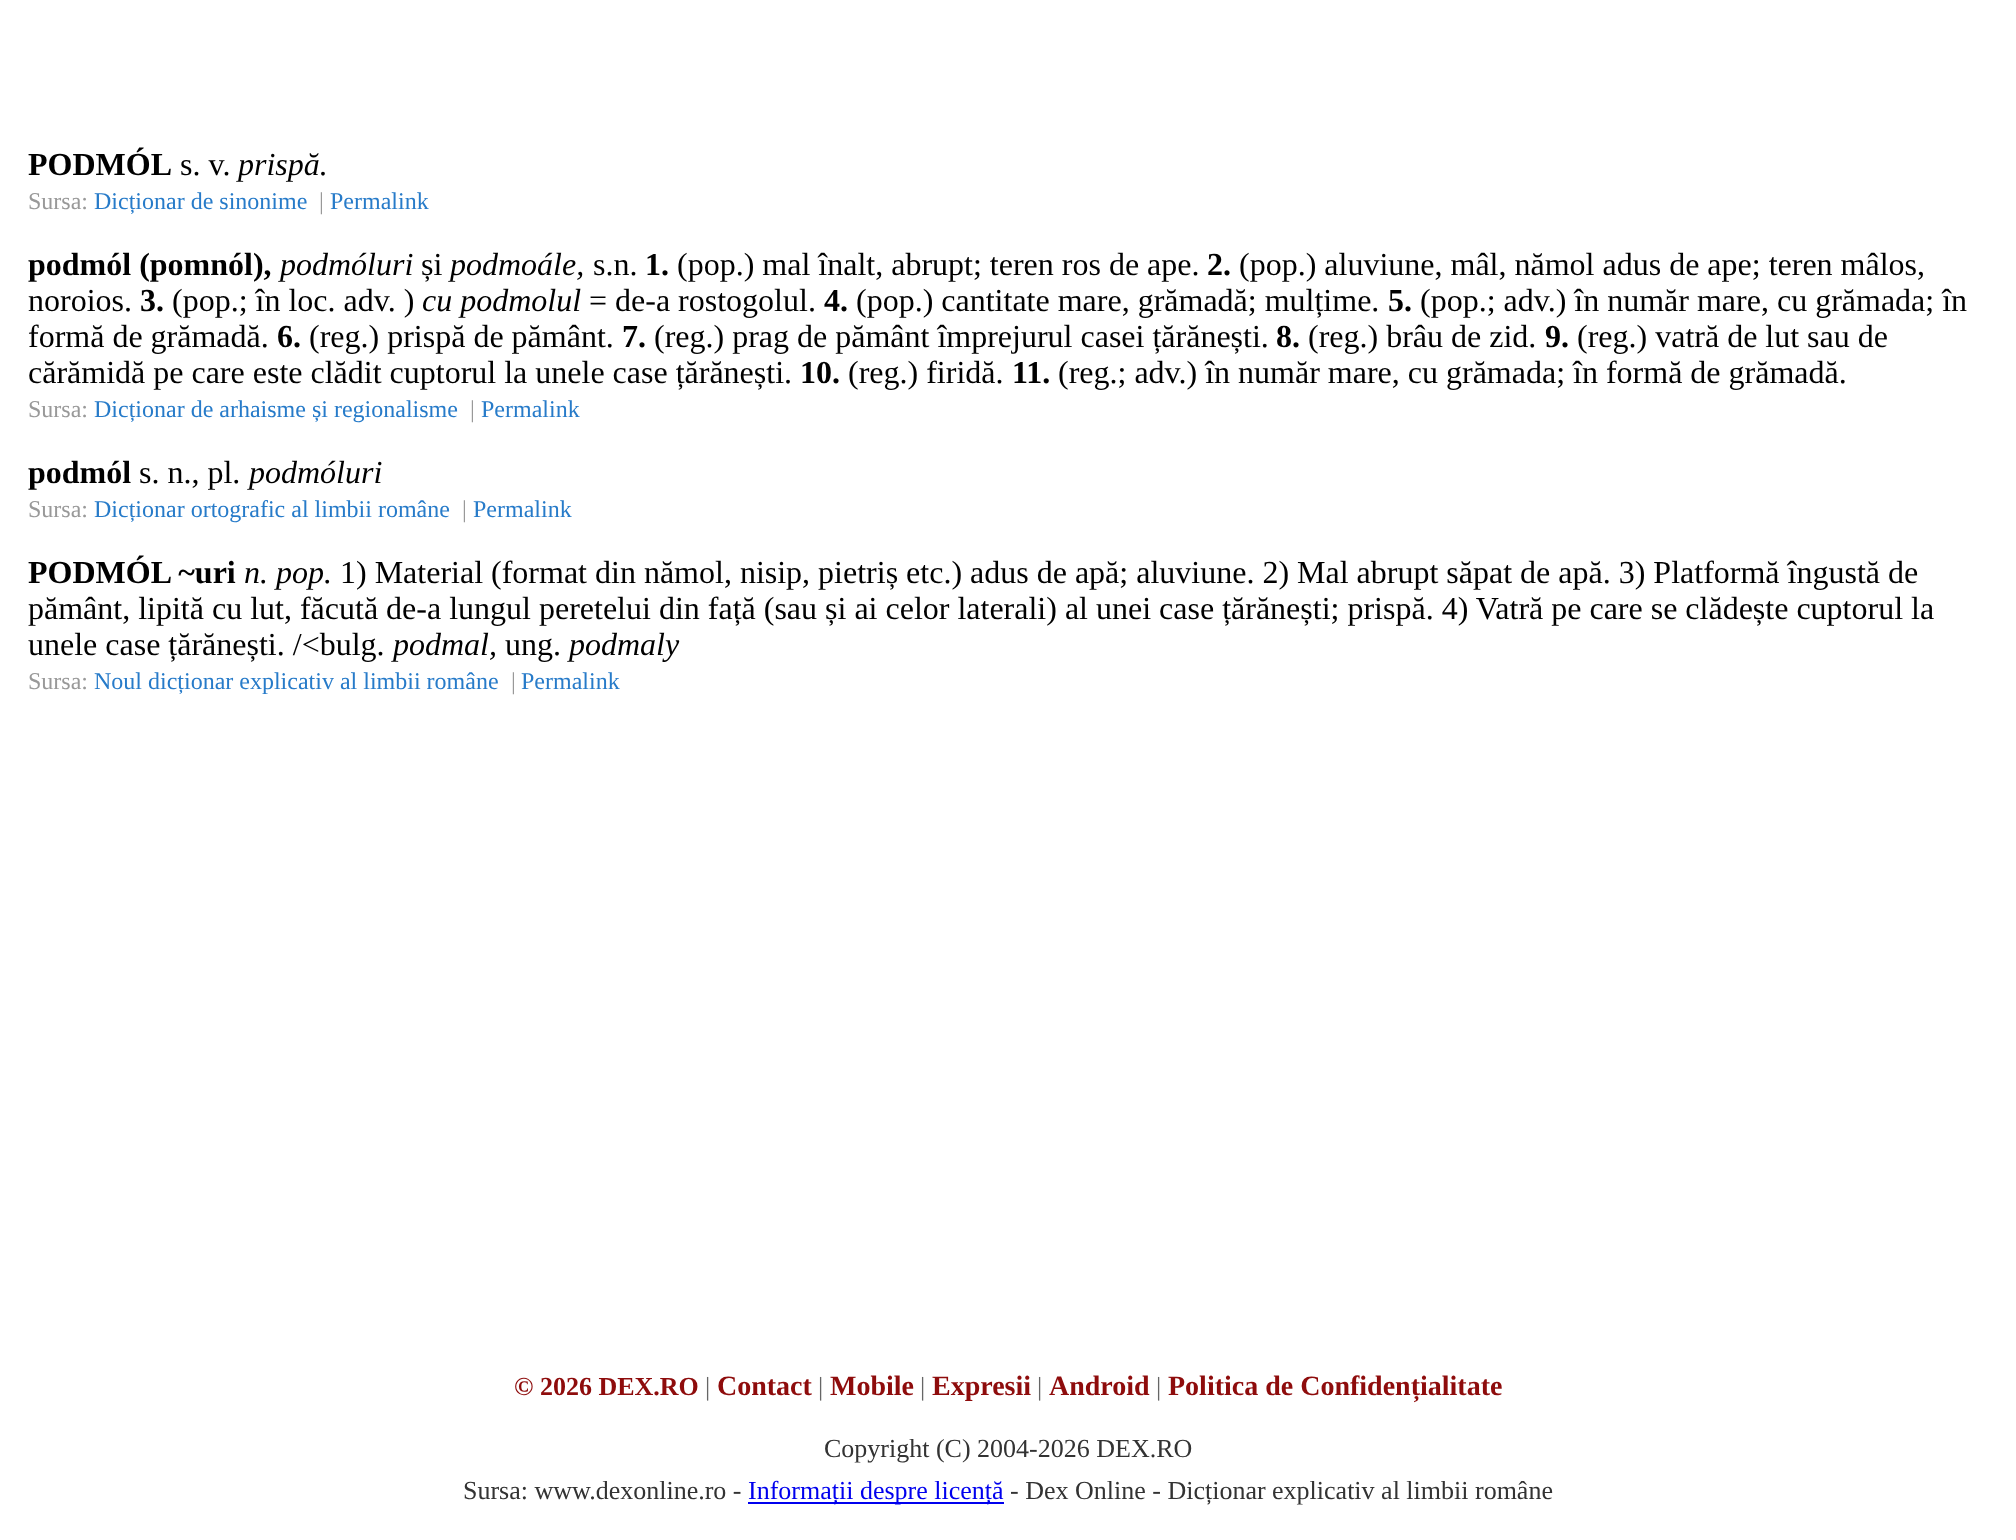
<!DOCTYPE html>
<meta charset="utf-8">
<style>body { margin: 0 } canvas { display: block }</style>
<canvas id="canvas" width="2016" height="1540"></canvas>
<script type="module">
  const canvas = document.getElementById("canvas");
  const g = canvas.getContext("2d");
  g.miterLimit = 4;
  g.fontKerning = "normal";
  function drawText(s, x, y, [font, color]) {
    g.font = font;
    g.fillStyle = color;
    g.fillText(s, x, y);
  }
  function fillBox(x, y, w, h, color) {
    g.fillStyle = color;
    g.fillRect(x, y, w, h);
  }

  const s1 = ["bold 32px Liberation Serif", "#000000"];
  const s2 = ["32px Liberation Serif", "#000000"];
  const s3 = ["italic 32px Liberation Serif", "#000000"];
  const s4 = ["24px Liberation Serif", "#999999"];
  const s5 = ["24px Liberation Serif", "#277BC9"];
  const s6 = ["bold 26px Liberation Serif", "#8E0C0C"];
  const s7 = ["26px Liberation Serif", "#666666"];
  const s8 = ["bold 28px Liberation Serif", "#8E0C0C"];
  const s9 = ["26px Liberation Serif", "#333333"];
  const s10 = ["26px Liberation Serif", "#0000EE"];

  fillBox(0, 0, 2016, 1540, "#FFFFFF");
  drawText("PODMÓL", 28, 175, s1);
  drawText("s. v.", 180, 175, s2);
  drawText("prispă.", 238, 175, s3);
  drawText("Sursa:", 28, 209, s4);
  drawText("Dicționar de sinonime", 94, 209, s5);
  drawText("|", 319, 209, s4);
  drawText("Permalink", 330, 209, s5);
  drawText("podmól (pomnól),", 28, 275, s1);
  drawText("podmóluri", 280, 275, s3);
  drawText("și", 421, 275, s2);
  drawText("podmoále,", 450, 275, s3);
  drawText("s.n.", 593, 275, s2);
  drawText("1.", 645, 275, s1);
  drawText("(pop.) mal înalt, abrupt; teren ros de ape.", 677, 275, s2);
  drawText("2.", 1207, 275, s1);
  drawText("(pop.) aluviune, mâl, nămol adus de ape; teren mâlos,", 1239, 275, s2);
  drawText("noroios.", 28, 311, s2);
  drawText("3.", 140, 311, s1);
  drawText("(pop.; în loc. adv. )", 172, 311, s2);
  drawText("cu podmolul", 422, 311, s3);
  drawText("= de-a rostogolul.", 589, 311, s2);
  drawText("4.", 824, 311, s1);
  drawText("(pop.) cantitate mare, grămadă; mulțime.", 856, 311, s2);
  drawText("5.", 1388, 311, s1);
  drawText("(pop.; adv.) în număr mare, cu grămada; în", 1420, 311, s2);
  drawText("formă de grămadă.", 28, 347, s2);
  drawText("6.", 277, 347, s1);
  drawText("(reg.) prispă de pământ.", 309, 347, s2);
  drawText("7.", 622, 347, s1);
  drawText("(reg.) prag de pământ împrejurul casei țărănești.", 654, 347, s2);
  drawText("8.", 1276, 347, s1);
  drawText("(reg.) brâu de zid.", 1308, 347, s2);
  drawText("9.", 1545, 347, s1);
  drawText("(reg.) vatră de lut sau de", 1577, 347, s2);
  drawText("cărămidă pe care este clădit cuptorul la unele case țărănești.", 28, 383, s2);
  drawText("10.", 800, 383, s1);
  drawText("(reg.) firidă.", 848, 383, s2);
  drawText("11.", 1012, 383, s1);
  drawText("(reg.; adv.) în număr mare, cu grămada; în formă de grămadă.", 1058, 383, s2);
  drawText("Sursa:", 28, 417, s4);
  drawText("Dicționar de arhaisme și regionalisme", 94, 417, s5);
  drawText("|", 470, 417, s4);
  drawText("Permalink", 481, 417, s5);
  drawText("podmól", 28, 483, s1);
  drawText("s. n., pl.", 139, 483, s2);
  drawText("podmóluri", 249, 483, s3);
  drawText("Sursa:", 28, 517, s4);
  drawText("Dicționar ortografic al limbii române", 94, 517, s5);
  drawText("|", 462, 517, s4);
  drawText("Permalink", 473, 517, s5);
  drawText("PODMÓL ~uri", 28, 583, s1);
  drawText("n. pop.", 244, 583, s3);
  drawText("1) Material (format din nămol, nisip, pietriș etc.) adus de apă; aluviune. 2) Mal abrupt săpat de apă. 3) Platformă îngustă de", 340, 583, s2);
  drawText("pământ, lipită cu lut, făcută de-a lungul peretelui din față (sau și ai celor laterali) al unei case țărănești; prispă. 4) Vatră pe care se clădește cuptorul la", 28, 619, s2);
  drawText("unele case țărănești. /<bulg.", 28, 655, s2);
  drawText("podmal,", 393, 655, s3);
  drawText("ung.", 505, 655, s2);
  drawText("podmaly", 569, 655, s3);
  drawText("Sursa:", 28, 689, s4);
  drawText("Noul dicționar explicativ al limbii române", 94, 689, s5);
  drawText("|", 511, 689, s4);
  drawText("Permalink", 521, 689, s5);
  drawText("© 2026 DEX.RO", 514, 1395, s6);
  drawText("|", 705, 1395, s7);
  drawText("Contact", 717, 1395, s8);
  drawText("|", 818, 1395, s7);
  drawText("Mobile", 830, 1395, s8);
  drawText("|", 920, 1395, s7);
  drawText("Expresii", 932, 1395, s8);
  drawText("|", 1037, 1395, s7);
  drawText("Android", 1049, 1395, s8);
  drawText("|", 1156, 1395, s7);
  drawText("Politica de Confidențialitate", 1168, 1395, s8);
  drawText("Copyright (C) 2004-2026 DEX.RO", 824, 1457, s9);
  drawText("Sursa: www.dexonline.ro -", 463, 1499, s9);
  fillBox(748, 1502, 256, 2, "#0000EE");
  drawText("Informații despre licență", 748, 1499, s10);
  drawText("- Dex Online - Dicționar explicativ al limbii române", 1010, 1499, s9);
</script>
